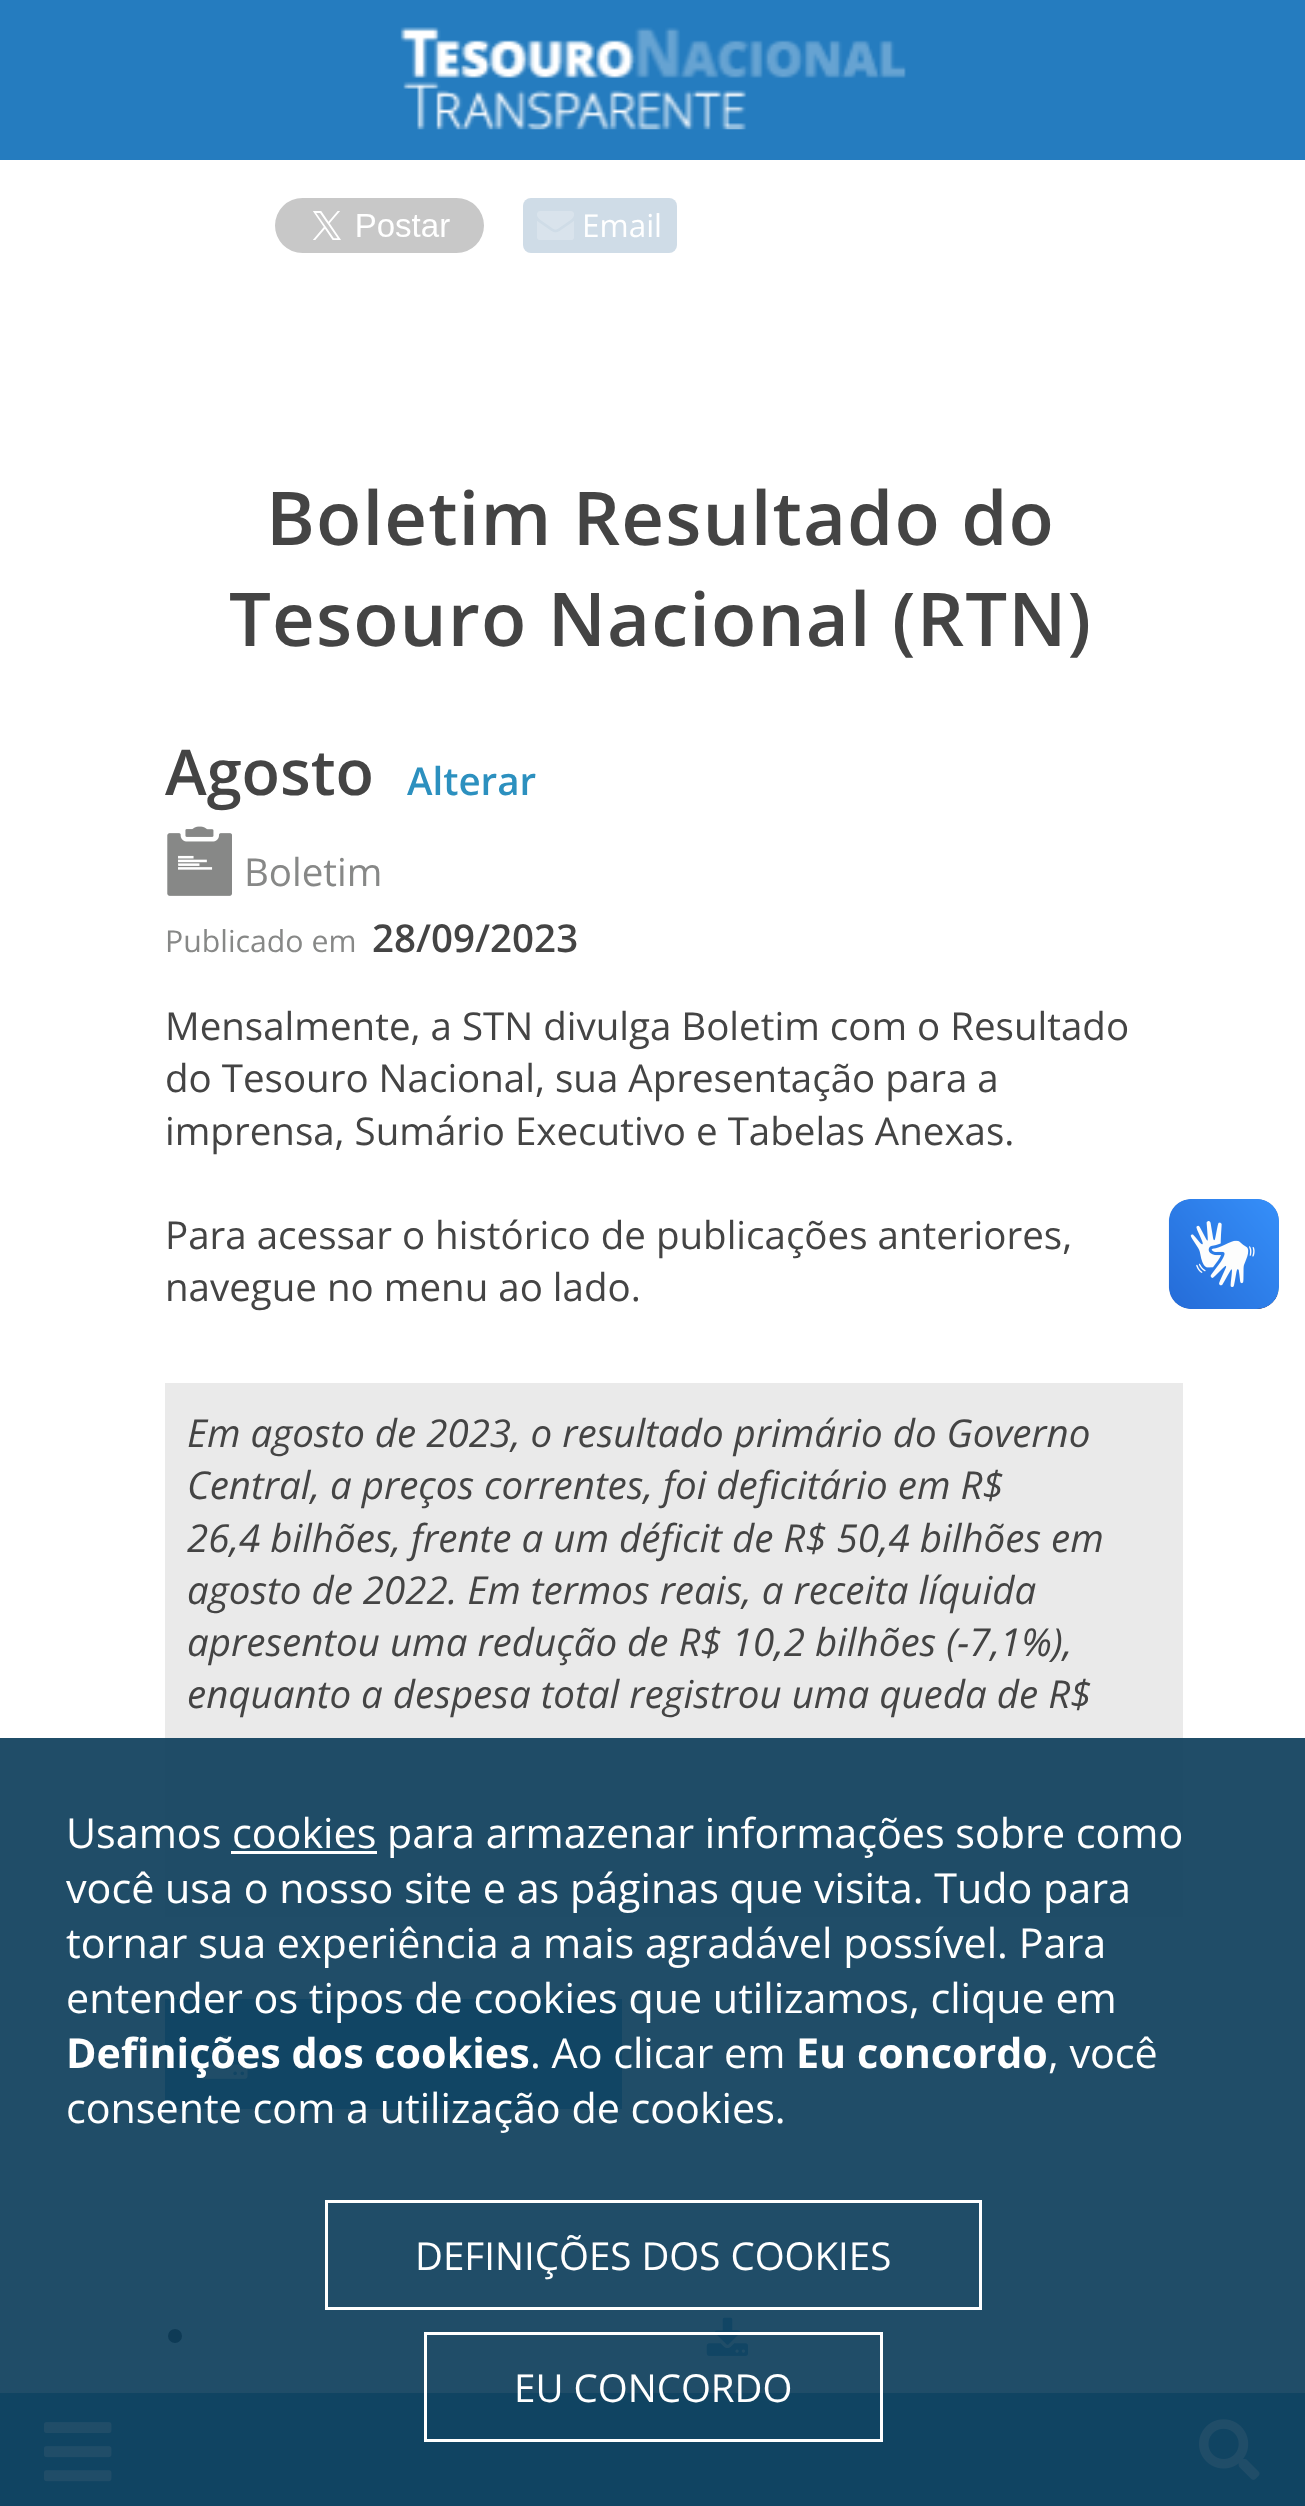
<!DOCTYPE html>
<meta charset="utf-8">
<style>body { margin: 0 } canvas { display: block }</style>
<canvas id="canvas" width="1305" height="2506"></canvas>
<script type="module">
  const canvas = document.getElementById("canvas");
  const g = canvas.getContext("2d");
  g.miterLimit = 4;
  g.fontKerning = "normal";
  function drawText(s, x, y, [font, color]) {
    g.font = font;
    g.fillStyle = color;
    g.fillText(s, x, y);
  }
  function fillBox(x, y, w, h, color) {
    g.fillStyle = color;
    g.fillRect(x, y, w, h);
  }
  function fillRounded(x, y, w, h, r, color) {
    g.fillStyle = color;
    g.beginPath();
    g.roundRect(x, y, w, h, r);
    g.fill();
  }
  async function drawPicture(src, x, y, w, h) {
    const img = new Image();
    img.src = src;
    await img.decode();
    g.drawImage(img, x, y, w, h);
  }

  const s1 = ["31.5px Open Sans", "#FFFFFF"];
  const s2 = ["600 74.25px Open Sans", "#444444"];
  const s3 = ["600 63px Open Sans", "#444444"];
  const s4 = ["600 38.5px Open Sans", "#2C90BF"];
  const s5 = ["38.5px Open Sans", "#878887"];
  const s6 = ["30.25px Open Sans", "#878887"];
  const s7 = ["600 38.5px Open Sans", "#444444"];
  const s8 = ["38.5px Open Sans", "#444444"];
  const s9 = ["italic 38.5px Open Sans", "#444444"];
  const s10 = ["41.25px Open Sans", "#FFFFFF"];
  const s11 = ["bold 41.25px Open Sans", "#FFFFFF"];
  const s12 = ["38.5px Open Sans", "#FFFFFF"];

  fillBox(0, 0, 1305, 2506, "#FFFFFF");
  fillBox(0, 0, 1305, 160, "#257CBF");
  await drawPicture("pic1.png", 400, 27, 506, 103);
  await drawPicture("pic2.png", 275, 198, 209, 55);
  fillRounded(523, 198, 154, 55, 8, "#CFDCE7");
  await drawPicture("pic3.png", 537, 211, 37, 29);
  drawText("Email", 582, 237, s1);
  fillBox(0, 2393, 1305, 113, "#2881AC");
  await drawPicture("pic4.png", 44, 2422, 68, 60);
  await drawPicture("pic5.png", 1199, 2419, 61, 61);
  g.letterSpacing = "1.1px";
  drawText("Boletim Resultado do", 266, 545, s2);
  drawText("Tesouro Nacional (RTN)", 229, 646, s2);
  g.letterSpacing = "0px";
  drawText("Agosto", 165, 795, s3);
  drawText("Alterar", 407, 795, s4);
  await drawPicture("pic6.png", 167, 826, 65, 70);
  drawText("Boletim", 244, 886, s5);
  drawText("Publicado em", 165, 952, s6);
  drawText("28/09/2023", 372, 952, s7);
  drawText("Mensalmente, a STN divulga Boletim com o Resultado", 165, 1040, s8);
  drawText("do Tesouro Nacional, sua Apresentação para a", 165, 1092, s8);
  drawText("imprensa, Sumário Executivo e Tabelas Anexas.", 165, 1145, s8);
  drawText("Para acessar o histórico de publicações anteriores,", 165, 1249, s8);
  drawText("navegue no menu ao lado.", 165, 1301, s8);
  fillBox(165, 1383, 1018, 534, "#EAEAEA");
  drawText("Em agosto de 2023, o resultado primário do Governo", 187, 1447, s9);
  drawText("Central, a preços correntes, foi deficitário em R$", 187, 1499, s9);
  drawText("26,4 bilhões, frente a um déficit de R$ 50,4 bilhões em", 187, 1552, s9);
  drawText("agosto de 2022. Em termos reais, a receita líquida", 187, 1604, s9);
  drawText("apresentou uma redução de R$ 10,2 bilhões (-7,1%),", 187, 1656, s9);
  drawText("enquanto a despesa total registrou uma queda de R$", 187, 1708, s9);
  fillBox(165, 1999, 457, 110, "#2C90BF");
  await drawPicture("pic7.png", 200, 2035, 48, 44);
  g.fillStyle = "#000000";
  g.beginPath();
  g.arc(175, 2336, 7, 0, Math.PI * 2);
  g.fill();
  await drawPicture("pic8.png", 706, 2317, 42, 39);
  fillRounded(1169, 1199, 110, 110, 22, "#CCCCCC");
  await drawPicture("pic9.png", 1168, 1199, 111, 110);
  await drawPicture("pic10.png", 1169, 1199, 110, 110);
  fillBox(0, 1738, 1305, 768, "rgba(15, 64, 92, 0.93)");
  drawText("Usamos cookies para armazenar informações sobre como", 66, 1848, s10);
  fillBox(231, 1851, 146, 3, "#FFFFFF");
  drawText("você usa o nosso site e as páginas que visita. Tudo para", 66, 1903, s10);
  drawText("tornar sua experiência a mais agradável possível. Para", 66, 1958, s10);
  drawText("entender os tipos de cookies que utilizamos, clique em", 66, 2013, s10);
  drawText("Definições dos cookies", 66, 2068, s11);
  drawText(". Ao clicar em", 530, 2068, s10);
  drawText("Eu concordo", 796, 2068, s11);
  drawText(", você", 1048, 2068, s10);
  drawText("consente com a utilização de cookies.", 66, 2123, s10);
  g.strokeStyle = "#FFFFFF";
  g.lineWidth = 3;
  g.strokeRect(326.5, 2201.5, 654, 107);
  drawText("DEFINIÇÕES DOS COOKIES", 415, 2270, s12);
  g.strokeRect(425.5, 2333.5, 456, 107);
  drawText("EU CONCORDO", 514, 2402, s12);
</script>
